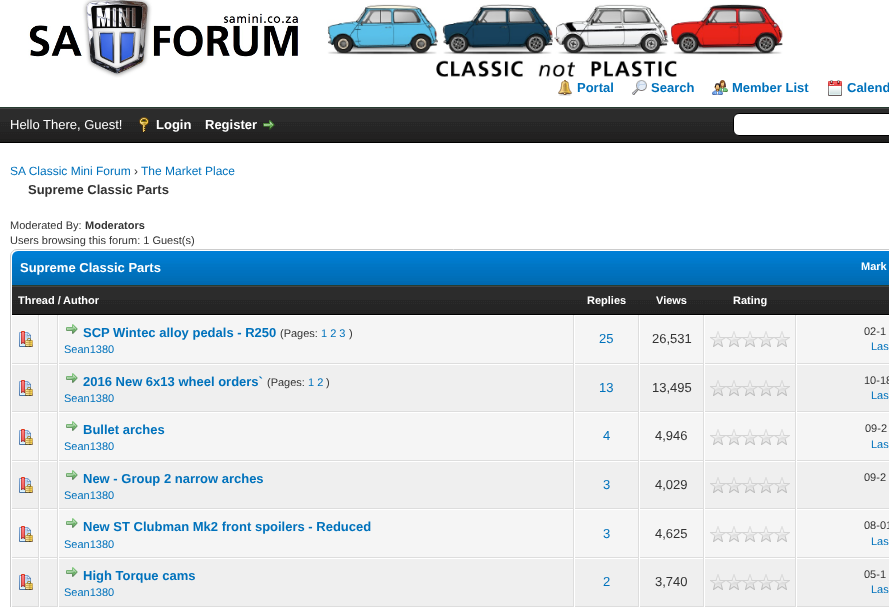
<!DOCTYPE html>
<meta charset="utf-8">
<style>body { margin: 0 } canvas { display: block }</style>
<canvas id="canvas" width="889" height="607"></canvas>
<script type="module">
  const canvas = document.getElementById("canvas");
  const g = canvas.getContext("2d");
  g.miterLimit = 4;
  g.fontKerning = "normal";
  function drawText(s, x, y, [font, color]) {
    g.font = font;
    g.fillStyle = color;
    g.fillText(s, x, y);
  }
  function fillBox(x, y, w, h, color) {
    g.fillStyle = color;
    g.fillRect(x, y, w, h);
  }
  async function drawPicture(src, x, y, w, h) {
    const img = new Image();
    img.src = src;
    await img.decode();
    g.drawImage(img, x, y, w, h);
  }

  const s1 = ["bold 13px Liberation Sans", "#0072BC"];
  const s2 = ["13px Liberation Sans", "#FFFFFF"];
  const s3 = ["bold 13px Liberation Sans", "#FFFFFF"];
  const s4 = ["12px Liberation Sans", "#0072BC"];
  const s5 = ["12px Liberation Sans", "#333333"];
  const s6 = ["bold 13px Liberation Sans", "#333333"];
  const s7 = ["11px Liberation Sans", "#333333"];
  const s8 = ["bold 11px Liberation Sans", "#333333"];
  const s9 = ["bold 11px Liberation Sans", "#FFFFFF"];
  const s10 = ["11px Liberation Sans", "#0072BC"];
  const s11 = ["13px Liberation Sans", "#0072BC"];
  const s12 = ["13px Liberation Sans", "#333333"];

  fillBox(0, 0, 889, 607, "#FFFFFF");
  fillBox(0, 107, 889, 1, "#263C30");
  await drawPicture("pic1.png", 28, 0, 271, 78);
  await drawPicture("pic2.png", 327, 4, 456, 73);
  await drawPicture("pic3.png", 558, 80, 14, 16);
  drawText("Portal", 577, 92, s1);
  await drawPicture("pic4.png", 632, 80, 15, 15);
  drawText("Search", 651, 92, s1);
  await drawPicture("pic5.png", 712, 80, 16, 15);
  drawText("Member List", 732, 92, s1);
  await drawPicture("pic6.png", 828, 80, 14, 16);
  drawText("Calend", 847, 92, s1);
  await drawPicture("pic7.png", 0, 109, 889, 33);
  fillBox(0, 108, 889, 1, "#444444");
  fillBox(0, 142, 889, 1, "#000000");
  drawText("Hello There, Guest!", 10, 129, s2);
  await drawPicture("pic8.png", 139, 117, 10, 15);
  drawText("Login", 156, 129, s3);
  drawText("Register", 205, 129, s3);
  await drawPicture("pic9.png", 263, 120, 12, 10);
  g.beginPath();
  g.roundRect(733.5, 113.5, 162, 22, 5.5);
  g.fill();
  g.strokeStyle = "#000000";
  g.stroke();
  drawText("SA Classic Mini Forum", 10, 175, s4);
  drawText("›", 134, 175, s5);
  drawText("The Market Place", 141, 175, s4);
  drawText("Supreme Classic Parts", 28, 194, s6);
  drawText("Moderated By:", 10, 229, s7);
  drawText("Moderators", 85, 229, s8);
  drawText("Users browsing this forum: 1 Guest(s)", 10, 244, s7);
  g.beginPath();
  g.roundRect(10.5, 249.5, 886, 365, 6.5);
  g.strokeStyle = "#CCCCCC";
  g.stroke();
  await drawPicture("pic10.png", 12, 251, 877, 34);
  fillBox(12, 285, 877, 1, "#263C30");
  drawText("Supreme Classic Parts", 20, 272, s3);
  drawText("Mark", 861, 270, s9);
  await drawPicture("pic11.png", 12, 287, 562, 27);
  fillBox(12, 286, 877, 1, "#444444");
  fillBox(12, 314, 877, 1, "#000000");
  drawText("Thread /", 18, 304, s9);
  drawText("Author", 63, 304, s9);
  await drawPicture("pic12.png", 574, 287, 65, 27);
  drawText("Replies", 587, 304, s9);
  await drawPicture("pic12.png", 639, 287, 65, 27);
  drawText("Views", 656, 304, s9);
  await drawPicture("pic13.png", 704, 287, 92, 27);
  drawText("Rating", 733, 304, s9);
  await drawPicture("pic14.png", 796, 287, 93, 27);
  fillBox(12, 316, 26, 47, "#F5F5F5");
  fillBox(38, 315, 1, 292, "#DDDDDD");
  fillBox(12, 363, 27, 1, "#DDDDDD");
  await drawPicture("pic15.png", 19, 331, 14, 16);
  fillBox(40, 316, 17, 47, "#F5F5F5");
  fillBox(57, 315, 1, 292, "#DDDDDD");
  fillBox(39, 363, 19, 1, "#DDDDDD");
  fillBox(39, 363, 1, 1, "#FFFFFF");
  fillBox(59, 316, 514, 47, "#F5F5F5");
  fillBox(573, 315, 1, 292, "#DDDDDD");
  fillBox(58, 363, 516, 1, "#DDDDDD");
  fillBox(58, 363, 1, 1, "#FFFFFF");
  await drawPicture("pic16.png", 66, 324, 12, 10);
  drawText("SCP Wintec alloy pedals - R250", 83, 337, s1);
  drawText("(Pages:", 280, 337, s7);
  drawText("1 2 3", 321, 337, s10);
  drawText(")", 349, 337, s7);
  drawText("Sean1380", 64, 353, s10);
  fillBox(705, 316, 90, 47, "#F5F5F5");
  fillBox(795, 315, 1, 292, "#DDDDDD");
  fillBox(704, 363, 185, 1, "#DDDDDD");
  fillBox(704, 363, 1, 1, "#FFFFFF");
  await drawPicture("pic17.png", 710, 331, 80, 16);
  fillBox(575, 316, 63, 47, "#F5F5F5");
  fillBox(638, 315, 1, 292, "#DDDDDD");
  fillBox(574, 363, 65, 1, "#DDDDDD");
  fillBox(574, 363, 1, 1, "#FFFFFF");
  drawText("25", 599, 343, s11);
  fillBox(640, 316, 63, 47, "#F5F5F5");
  fillBox(703, 315, 1, 292, "#DDDDDD");
  fillBox(639, 363, 65, 1, "#DDDDDD");
  fillBox(639, 363, 1, 1, "#FFFFFF");
  drawText("26,531", 652, 343, s12);
  fillBox(797, 316, 92, 47, "#F5F5F5");
  fillBox(796, 363, 1, 1, "#FFFFFF");
  drawText("02-1", 864, 335, s7);
  drawText("Las", 871, 350, s10);
  fillBox(12, 365, 26, 46, "#EFEFEF");
  fillBox(12, 411, 877, 1, "#DDDDDD");
  await drawPicture("pic18.png", 19, 380, 14, 16);
  fillBox(40, 365, 17, 46, "#EFEFEF");
  fillBox(39, 411, 1, 1, "#FFFFFF");
  fillBox(59, 365, 514, 46, "#EFEFEF");
  fillBox(58, 411, 1, 1, "#FFFFFF");
  await drawPicture("pic19.png", 66, 373, 12, 10);
  drawText("2016 New 6x13 wheel orders`", 83, 386, s1);
  drawText("(Pages:", 267, 386, s7);
  drawText("1 2", 308, 386, s10);
  drawText(")", 326, 386, s7);
  drawText("Sean1380", 64, 402, s10);
  fillBox(575, 365, 63, 46, "#EFEFEF");
  fillBox(574, 411, 1, 1, "#FFFFFF");
  drawText("13", 599, 392, s11);
  fillBox(640, 365, 63, 46, "#EFEFEF");
  fillBox(639, 411, 1, 1, "#FFFFFF");
  drawText("13,495", 652, 392, s12);
  fillBox(705, 365, 90, 46, "#EFEFEF");
  fillBox(704, 411, 1, 1, "#FFFFFF");
  await drawPicture("pic20.png", 710, 380, 80, 16);
  fillBox(797, 365, 92, 46, "#EFEFEF");
  fillBox(796, 411, 1, 1, "#FFFFFF");
  drawText("10-18", 864, 384, s7);
  drawText("Las", 871, 399, s10);
  fillBox(12, 413, 26, 47, "#F5F5F5");
  fillBox(12, 460, 877, 1, "#DDDDDD");
  await drawPicture("pic15.png", 19, 429, 14, 16);
  fillBox(40, 413, 17, 47, "#F5F5F5");
  fillBox(39, 460, 1, 1, "#FFFFFF");
  fillBox(59, 413, 514, 47, "#F5F5F5");
  fillBox(58, 460, 1, 1, "#FFFFFF");
  await drawPicture("pic16.png", 66, 421, 12, 10);
  drawText("Bullet arches", 83, 434, s1);
  drawText("Sean1380", 64, 450, s10);
  fillBox(575, 413, 63, 47, "#F5F5F5");
  fillBox(574, 460, 1, 1, "#FFFFFF");
  drawText("4", 603, 440, s11);
  fillBox(640, 413, 63, 47, "#F5F5F5");
  fillBox(639, 460, 1, 1, "#FFFFFF");
  drawText("4,946", 655, 440, s12);
  fillBox(705, 413, 90, 47, "#F5F5F5");
  fillBox(704, 460, 1, 1, "#FFFFFF");
  await drawPicture("pic17.png", 710, 429, 80, 16);
  fillBox(797, 413, 92, 47, "#F5F5F5");
  fillBox(796, 460, 1, 1, "#FFFFFF");
  drawText("09-2", 865, 432, s7);
  drawText("Las", 871, 448, s10);
  fillBox(12, 462, 26, 46, "#EFEFEF");
  fillBox(12, 508, 877, 1, "#DDDDDD");
  await drawPicture("pic18.png", 19, 477, 14, 16);
  fillBox(40, 462, 17, 46, "#EFEFEF");
  fillBox(39, 508, 1, 1, "#FFFFFF");
  fillBox(59, 462, 514, 46, "#EFEFEF");
  fillBox(58, 508, 1, 1, "#FFFFFF");
  await drawPicture("pic19.png", 66, 470, 12, 10);
  drawText("New - Group 2 narrow arches", 83, 483, s1);
  drawText("Sean1380", 64, 499, s10);
  fillBox(705, 462, 90, 46, "#EFEFEF");
  fillBox(704, 508, 1, 1, "#FFFFFF");
  await drawPicture("pic20.png", 710, 477, 80, 16);
  fillBox(797, 462, 92, 46, "#EFEFEF");
  fillBox(796, 508, 1, 1, "#FFFFFF");
  drawText("09-2", 864, 481, s7);
  fillBox(575, 462, 63, 46, "#EFEFEF");
  fillBox(574, 508, 1, 1, "#FFFFFF");
  drawText("3", 603, 489, s11);
  fillBox(640, 462, 63, 46, "#EFEFEF");
  fillBox(639, 508, 1, 1, "#FFFFFF");
  drawText("4,029", 655, 489, s12);
  fillBox(12, 510, 26, 47, "#F5F5F5");
  fillBox(12, 557, 877, 1, "#DDDDDD");
  await drawPicture("pic15.png", 19, 526, 14, 16);
  fillBox(40, 510, 17, 47, "#F5F5F5");
  fillBox(39, 557, 1, 1, "#FFFFFF");
  fillBox(59, 510, 514, 47, "#F5F5F5");
  fillBox(58, 557, 1, 1, "#FFFFFF");
  await drawPicture("pic16.png", 66, 518, 12, 10);
  drawText("New ST Clubman Mk2 front spoilers - Reduced", 83, 531, s1);
  drawText("Sean1380", 64, 548, s10);
  fillBox(575, 510, 63, 47, "#F5F5F5");
  fillBox(574, 557, 1, 1, "#FFFFFF");
  drawText("3", 603, 538, s11);
  fillBox(640, 510, 63, 47, "#F5F5F5");
  fillBox(639, 557, 1, 1, "#FFFFFF");
  drawText("4,625", 655, 538, s12);
  fillBox(705, 510, 90, 47, "#F5F5F5");
  fillBox(704, 557, 1, 1, "#FFFFFF");
  await drawPicture("pic17.png", 710, 526, 80, 16);
  fillBox(797, 510, 92, 47, "#F5F5F5");
  fillBox(796, 557, 1, 1, "#FFFFFF");
  drawText("08-01", 864, 529, s7);
  drawText("Las", 871, 545, s10);
  fillBox(12, 559, 26, 47, "#EFEFEF");
  fillBox(12, 606, 877, 1, "#DDDDDD");
  await drawPicture("pic18.png", 19, 574, 14, 16);
  fillBox(40, 559, 17, 47, "#EFEFEF");
  fillBox(39, 606, 1, 1, "#FFFFFF");
  fillBox(59, 559, 514, 47, "#EFEFEF");
  fillBox(58, 606, 1, 1, "#FFFFFF");
  await drawPicture("pic19.png", 66, 567, 12, 10);
  drawText("High Torque cams", 83, 580, s1);
  drawText("Sean1380", 64, 596, s10);
  fillBox(575, 559, 63, 47, "#EFEFEF");
  fillBox(574, 606, 1, 1, "#FFFFFF");
  drawText("2", 603, 586, s11);
  fillBox(640, 559, 63, 47, "#EFEFEF");
  fillBox(639, 606, 1, 1, "#FFFFFF");
  drawText("3,740", 655, 586, s12);
  fillBox(705, 559, 90, 47, "#EFEFEF");
  fillBox(704, 606, 1, 1, "#FFFFFF");
  await drawPicture("pic20.png", 710, 574, 80, 16);
  fillBox(797, 559, 92, 47, "#EFEFEF");
  fillBox(796, 606, 1, 1, "#FFFFFF");
  drawText("05-1", 864, 578, s7);
  drawText("Las", 871, 593, s10);
</script>
